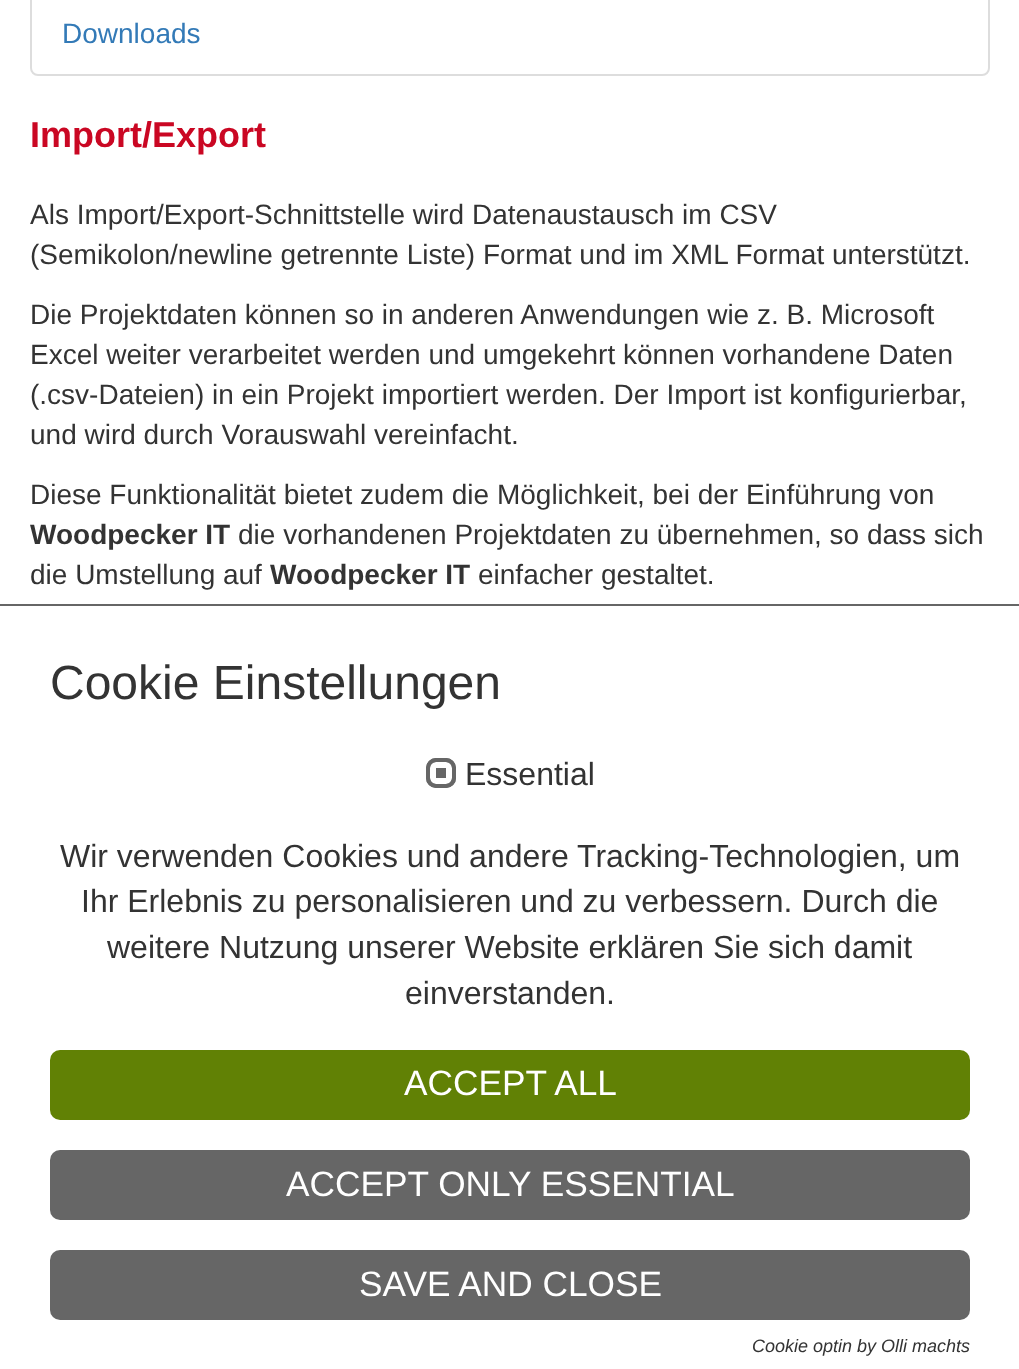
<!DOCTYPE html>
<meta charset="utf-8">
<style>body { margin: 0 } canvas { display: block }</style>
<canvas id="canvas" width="1019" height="1369"></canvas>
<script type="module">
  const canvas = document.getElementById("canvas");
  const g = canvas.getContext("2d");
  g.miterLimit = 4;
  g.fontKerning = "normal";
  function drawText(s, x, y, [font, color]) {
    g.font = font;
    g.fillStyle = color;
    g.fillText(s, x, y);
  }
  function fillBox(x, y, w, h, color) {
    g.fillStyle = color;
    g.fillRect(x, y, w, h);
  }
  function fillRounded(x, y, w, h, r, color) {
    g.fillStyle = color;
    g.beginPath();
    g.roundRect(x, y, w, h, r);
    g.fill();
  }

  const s1 = ["28px Liberation Sans", "#337AB7"];
  const s2 = ["bold 36px Liberation Sans", "#CA0723"];
  const s3 = ["28px Liberation Sans", "#333333"];
  const s4 = ["bold 28px Liberation Sans", "#333333"];
  const s5 = ["48px Liberation Sans", "#333333"];
  const s6 = ["32px Liberation Sans", "#333333"];
  const s7 = ["35.25px Liberation Sans", "#FFFFFF"];
  const s8 = ["italic 18px Liberation Sans", "#333333"];

  fillBox(0, 0, 1019, 1369, "#FFFFFF");
  g.beginPath();
  g.moveTo(31, -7);
  g.lineTo(989, -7);
  g.lineTo(989, 68);
  g.bezierCurveTo(989, 72, 986, 75, 982, 75);
  g.lineTo(38, 75);
  g.bezierCurveTo(34, 75, 31, 72, 31, 68);
  g.closePath();
  g.strokeStyle = "#DDDDDD";
  g.lineWidth = 2;
  g.stroke();
  drawText("Downloads", 62, 43, s1);
  drawText("Import/Export", 30, 147, s2);
  drawText("Als Import/Export-Schnittstelle wird Datenaustausch im CSV", 30, 224, s3);
  drawText("(Semikolon/newline getrennte Liste) Format und im XML Format unterstützt.", 30, 264, s3);
  drawText("Die Projektdaten können so in anderen Anwendungen wie z. B. Microsoft", 30, 324, s3);
  drawText("Excel weiter verarbeitet werden und umgekehrt können vorhandene Daten", 30, 364, s3);
  drawText("(.csv-Dateien) in ein Projekt importiert werden. Der Import ist konfigurierbar,", 30, 404, s3);
  drawText("und wird durch Vorauswahl vereinfacht.", 30, 444, s3);
  drawText("Diese Funktionalität bietet zudem die Möglichkeit, bei der Einführung von", 30, 504, s3);
  drawText("Woodpecker IT", 30, 544, s4);
  drawText("die vorhandenen Projektdaten zu übernehmen, so dass sich", 238, 544, s3);
  drawText("die Umstellung auf", 30, 584, s3);
  drawText("Woodpecker IT", 270, 584, s4);
  drawText("einfacher gestaltet.", 478, 584, s3);
  fillBox(0, 604, 1019, 2, "#666666");
  drawText("Cookie Einstellungen", 50, 699, s5);
  fillRounded(426, 758, 30, 30, 10, "#666666");
  g.beginPath();
  g.roundRect(433, 765, 16, 16, 3);
  g.strokeStyle = "#FFFFFF";
  g.lineWidth = 6;
  g.stroke();
  g.beginPath();
  g.roundRect(428, 760, 26, 26, 8);
  g.strokeStyle = "#666666";
  g.lineWidth = 4;
  g.stroke();
  drawText("Essential", 465, 785, s6);
  drawText("Wir verwenden Cookies und andere Tracking-Technologien, um", 60, 867, s6);
  drawText("Ihr Erlebnis zu personalisieren und zu verbessern. Durch die", 81, 912, s6);
  drawText("weitere Nutzung unserer Website erklären Sie sich damit", 107, 958, s6);
  drawText("einverstanden.", 405, 1004, s6);
  fillRounded(50, 1050, 920, 70, 10, "#618105");
  drawText("ACCEPT ALL", 404, 1095, s7);
  fillRounded(50, 1150, 920, 70, 10, "#666666");
  drawText("ACCEPT ONLY ESSENTIAL", 286, 1196, s7);
  fillRounded(50, 1250, 920, 70, 10, "#666666");
  drawText("SAVE AND CLOSE", 359, 1296, s7);
  drawText("Cookie optin by Olli machts", 752, 1352, s8);
</script>
